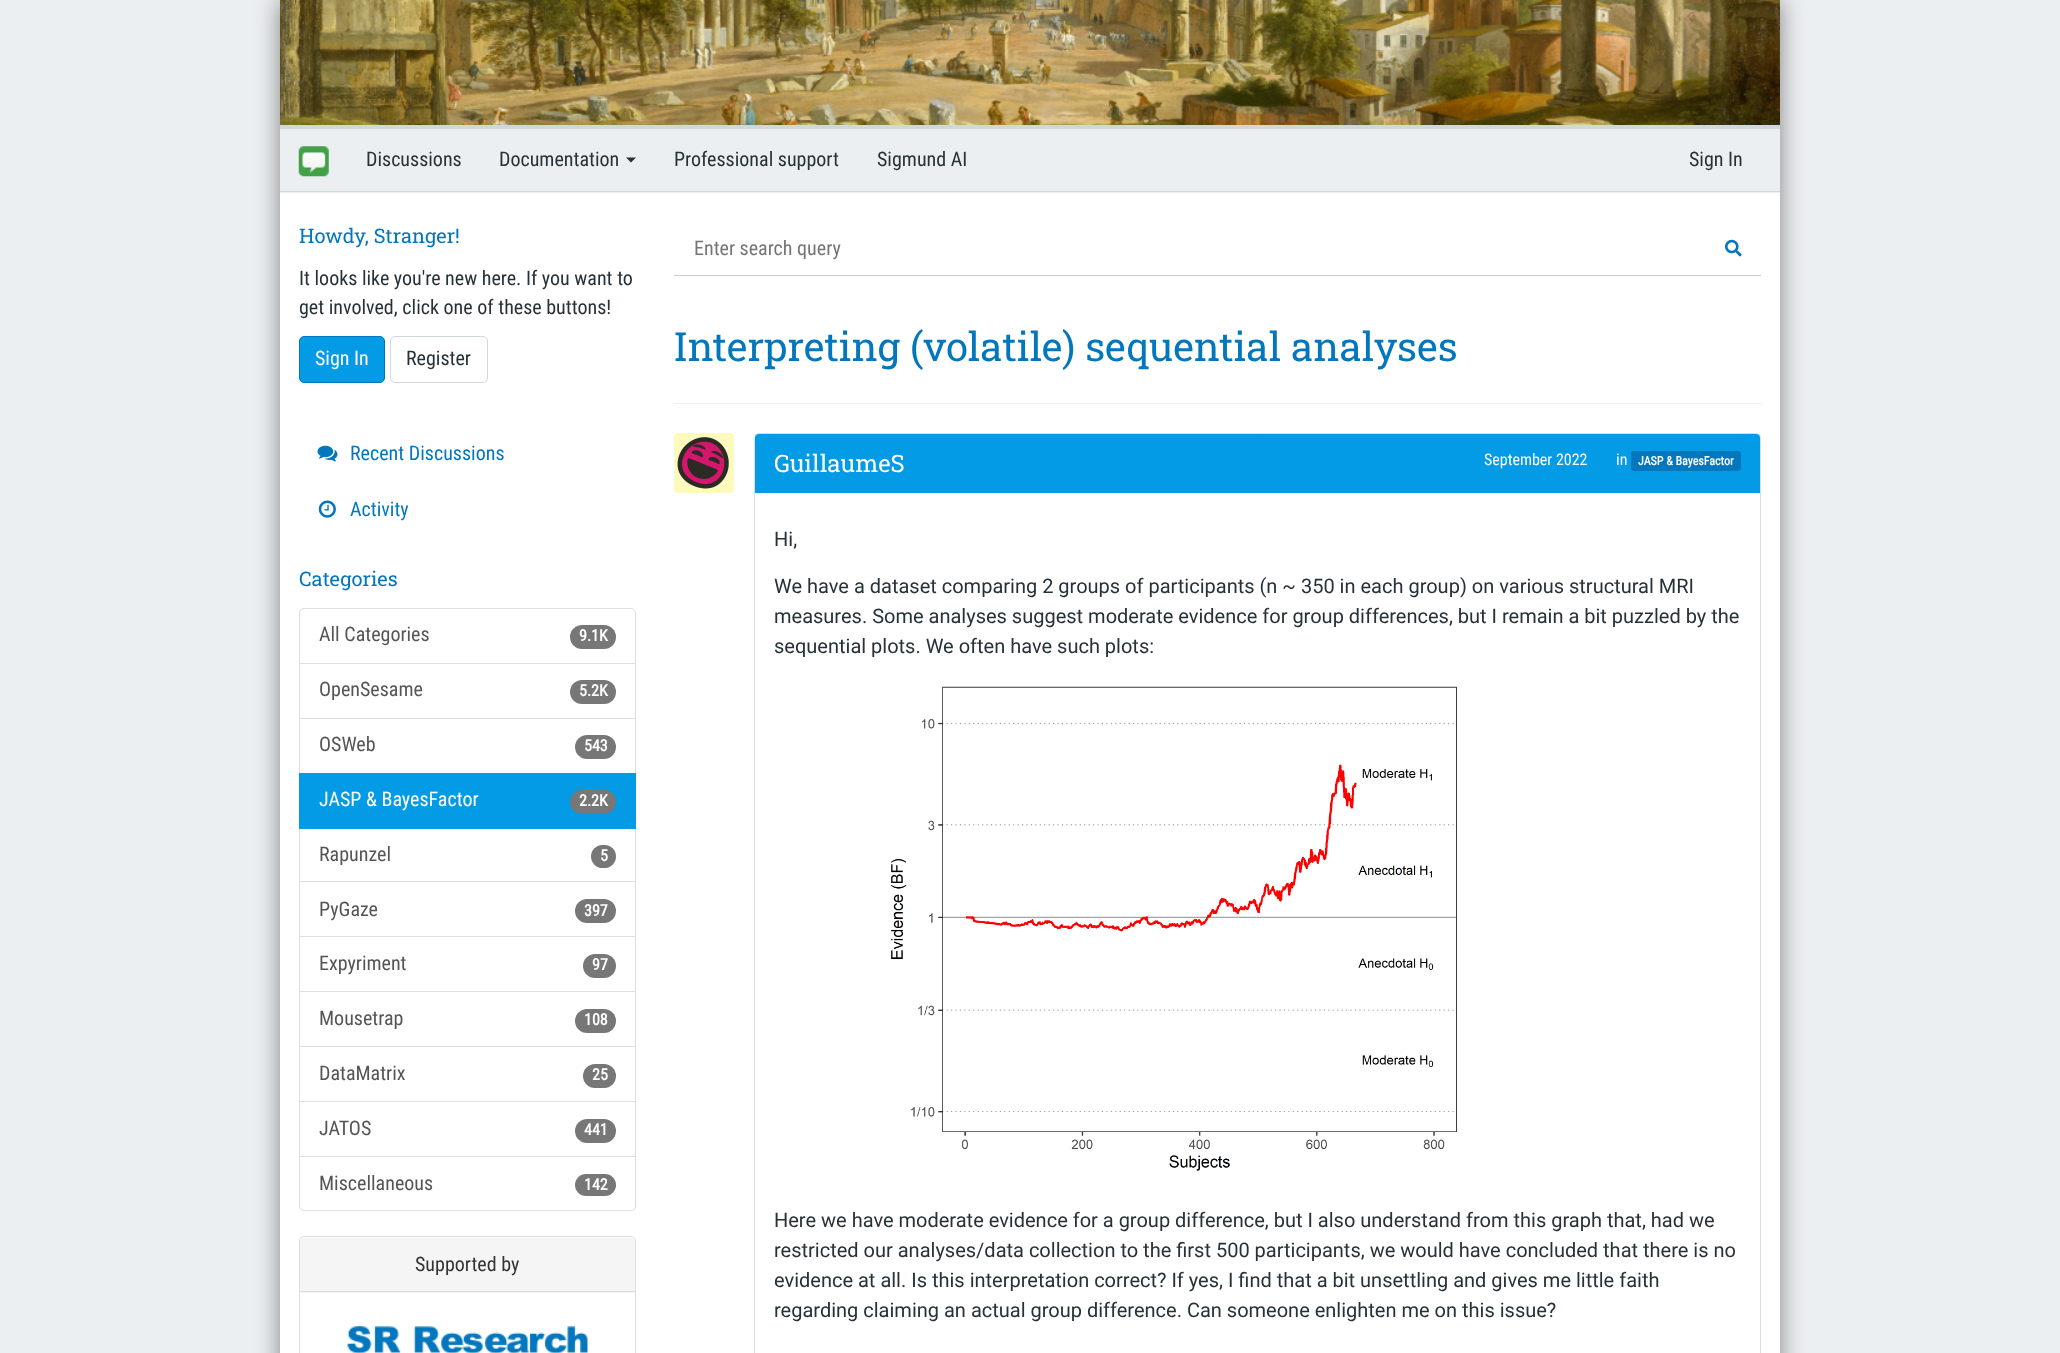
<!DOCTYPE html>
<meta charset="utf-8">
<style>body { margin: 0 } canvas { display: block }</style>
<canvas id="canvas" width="2060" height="1353"></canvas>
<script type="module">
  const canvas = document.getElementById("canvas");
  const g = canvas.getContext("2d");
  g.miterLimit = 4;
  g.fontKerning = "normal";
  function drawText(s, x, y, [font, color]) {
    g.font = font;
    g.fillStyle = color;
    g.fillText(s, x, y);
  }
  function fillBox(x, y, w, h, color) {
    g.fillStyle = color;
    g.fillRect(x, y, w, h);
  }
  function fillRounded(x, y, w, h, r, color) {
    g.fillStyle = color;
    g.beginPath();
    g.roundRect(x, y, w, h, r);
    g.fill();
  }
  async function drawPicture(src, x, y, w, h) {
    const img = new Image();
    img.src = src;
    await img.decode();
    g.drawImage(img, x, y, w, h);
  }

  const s1 = ["20px Roboto Condensed", "#263238"];
  const s2 = ["20px Roboto Slab", "#0277BD"];
  const s3 = ["20px Roboto Condensed", "#FFFFFF"];
  const s4 = ["20px Roboto Condensed", "#0277BD"];
  const s5 = ["20px Roboto Condensed", "#555555"];
  const s6 = ["bold 16px Roboto Condensed", "#FFFFFF"];
  const s7 = ["20px Roboto Condensed", "#333333"];
  const s8 = ["20px Roboto Condensed", "#757575"];
  const s9 = ["40px Roboto Slab", "#0277BD"];
  const s10 = ["24px Roboto Slab", "#FFFFFF"];
  const s11 = ["16px Roboto Condensed", "#FFFFFF"];
  const s12 = ["bold 12px Roboto Condensed", "#FFFFFF"];
  const s13 = ["20px Roboto", "#263238"];

  fillBox(0, 0, 2060, 1353, "#ECEFF1");
  g.fillStyle = "#808080";
  g.filter = "blur(12.5px)";
  g.beginPath();
  g.rect(280, 0, 1500, 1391);
  g.fill();
  g.filter = "none";
  fillBox(280, 193, 1500, 1160, "#FFFFFF");
  await drawPicture("pic1.png", 280, 0, 1500, 125);
  fillBox(280, 125, 1500, 4, "#CFD8DC");
  fillBox(280, 129, 1500, 64, "#ECEFF1");
  fillBox(280, 191, 1500, 1, "#CFD8DC");
  await drawPicture("pic2.png", 298, 146, 31, 31);
  drawText("Discussions", 366, 166, s1);
  drawText("Documentation", 499, 166, s1);
  g.beginPath();
  g.moveTo(626, 157.5);
  g.lineTo(636, 157.5);
  g.lineTo(631, 162.5);
  g.closePath();
  g.fill();
  drawText("Professional support", 674, 166, s1);
  drawText("Sigmund AI", 877, 166, s1);
  drawText("Sign In", 1689, 166, s1);
  drawText("Howdy, Stranger!", 299, 243, s2);
  drawText("It looks like you're new here. If you want to", 299, 285, s1);
  drawText("get involved, click one of these buttons!", 299, 314, s1);
  g.fillStyle = "#039BE5";
  g.beginPath();
  g.roundRect(299.5, 336.5, 85, 46, 4.5);
  g.fill();
  g.strokeStyle = "#0277BD";
  g.stroke();
  drawText("Sign In", 315, 365, s3);
  g.beginPath();
  g.roundRect(390.5, 336.5, 97, 46, 4.5);
  g.strokeStyle = "#CFD8DC";
  g.stroke();
  drawText("Register", 406, 365, s1);
  await drawPicture("pic3.png", 317, 445, 21, 17);
  drawText("Recent Discussions", 350, 460, s4);
  await drawPicture("pic4.png", 318, 500, 18, 18);
  drawText("Activity", 350, 516, s4);
  drawText("Categories", 299, 586, s2);
  g.beginPath();
  g.roundRect(299.5, 608.5, 336, 55, [4.5, 4.5, 0, 0]);
  g.strokeStyle = "#DDDDDD";
  g.stroke();
  drawText("All Categories", 319, 641, s5);
  fillRounded(570, 625, 46, 24, 12, "#777777");
  drawText("9.1K", 579, 641, s6);
  g.strokeRect(299.5, 663.5, 336, 55);
  drawText("OpenSesame", 319, 696, s5);
  fillRounded(570, 680, 46, 24, 12, "#777777");
  drawText("5.2K", 579, 696, s6);
  g.strokeRect(299.5, 718.5, 336, 55);
  drawText("OSWeb", 319, 751, s5);
  fillRounded(575, 735, 41, 24, 12, "#777777");
  drawText("543", 584, 751, s6);
  g.strokeRect(299.5, 828.5, 336, 54);
  fillBox(299, 773, 337, 56, "#039BE5");
  drawText("JASP & BayesFactor", 319, 806, s3);
  fillRounded(570, 790, 46, 24, 12, "#777777");
  drawText("2.2K", 579, 806, s6);
  drawText("Rapunzel", 319, 861, s5);
  fillRounded(591, 845, 25, 23, 11.5, "#777777");
  drawText("5", 600, 861, s6);
  fillBox(300, 882, 335, 1, "#FFFFFF");
  g.strokeRect(299.5, 881.5, 336, 56);
  drawText("PyGaze", 319, 916, s5);
  fillRounded(575, 899, 41, 24, 12, "#777777");
  drawText("397", 584, 916, s6);
  fillBox(300, 937, 335, 1, "#FFFFFF");
  g.strokeRect(299.5, 936.5, 336, 56);
  drawText("Expyriment", 319, 970, s5);
  fillRounded(583, 954, 33, 24, 12, "#777777");
  drawText("97", 592, 970, s6);
  fillBox(300, 992, 335, 1, "#FFFFFF");
  g.strokeRect(299.5, 991.5, 336, 56);
  drawText("Mousetrap", 319, 1025, s5);
  fillRounded(575, 1009, 41, 24, 12, "#777777");
  drawText("108", 584, 1025, s6);
  fillBox(300, 1047, 335, 1, "#FFFFFF");
  g.strokeRect(299.5, 1046.5, 336, 56);
  drawText("DataMatrix", 319, 1080, s5);
  fillRounded(583, 1064, 33, 24, 12, "#777777");
  drawText("25", 592, 1080, s6);
  fillBox(300, 1102, 335, 1, "#FFFFFF");
  g.strokeRect(299.5, 1101.5, 336, 56);
  drawText("JATOS", 319, 1135, s5);
  fillRounded(575, 1119, 41, 24, 12, "#777777");
  drawText("441", 584, 1135, s6);
  g.beginPath();
  g.roundRect(299.5, 1156.5, 336, 54, [0, 0, 4.5, 4.5]);
  g.fill();
  g.stroke();
  drawText("Miscellaneous", 319, 1190, s5);
  fillRounded(575, 1174, 41, 22, 11, "#777777");
  drawText("142", 584, 1190, s6);
  g.beginPath();
  g.roundRect(299.5, 1236.5, 336, 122, 4.5);
  g.stroke();
  g.fillStyle = "#F5F5F5";
  g.beginPath();
  g.roundRect(300, 1238, 335, 55, [4, 4, 0, 0]);
  g.fill();
  fillBox(300, 1291, 335, 1, "#DDDDDD");
  drawText("Supported by", 415, 1271, s7);
  await drawPicture("pic5.png", 347, 1326, 241, 27);
  fillBox(674, 275, 1087, 1, "#CCCCCC");
  drawText("Enter search query", 694, 255, s8);
  await drawPicture("pic6.png", 1725, 239, 17, 18);
  fillBox(674, 403, 1087, 1, "#EEEEEE");
  drawText("Interpreting (volatile) sequential analyses", 674, 361, s9);
  g.beginPath();
  g.roundRect(754.5, 433.5, 1006, 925, 4.5);
  g.stroke();
  g.fillStyle = "#039BE5";
  g.beginPath();
  g.roundRect(755, 434, 1005, 59, [4, 4, 0, 0]);
  g.fill();
  await drawPicture("pic7.png", 674, 433, 60, 60);
  drawText("GuillaumeS", 774, 472, s10);
  drawText("September 2022", 1484, 465, s11);
  drawText("in", 1616, 465, s11);
  fillRounded(1631, 451, 110, 20, 3, "#0277BD");
  drawText("JASP & BayesFactor", 1638, 465, s12);
  drawText("Hi,", 774, 546, s13);
  drawText("We have a dataset comparing 2 groups of participants (n ~ 350 in each group) on various structural MRI", 774, 593, s13);
  drawText("measures. Some analyses suggest moderate evidence for group differences, but I remain a bit puzzled by the", 774, 623, s13);
  drawText("sequential plots. We often have such plots:", 774, 653, s13);
  await drawPicture("pic8.png", 891, 686, 567, 485);
  drawText("Here we have moderate evidence for a group difference, but I also understand from this graph that, had we", 774, 1227, s13);
  drawText("restricted our analyses/data collection to the first 500 participants, we would have concluded that there is no", 774, 1257, s13);
  drawText("evidence at all. Is this interpretation correct? If yes, I find that a bit unsettling and gives me little faith", 774, 1287, s13);
  drawText("regarding claiming an actual group difference. Can someone enlighten me on this issue?", 774, 1317, s13);
</script>
